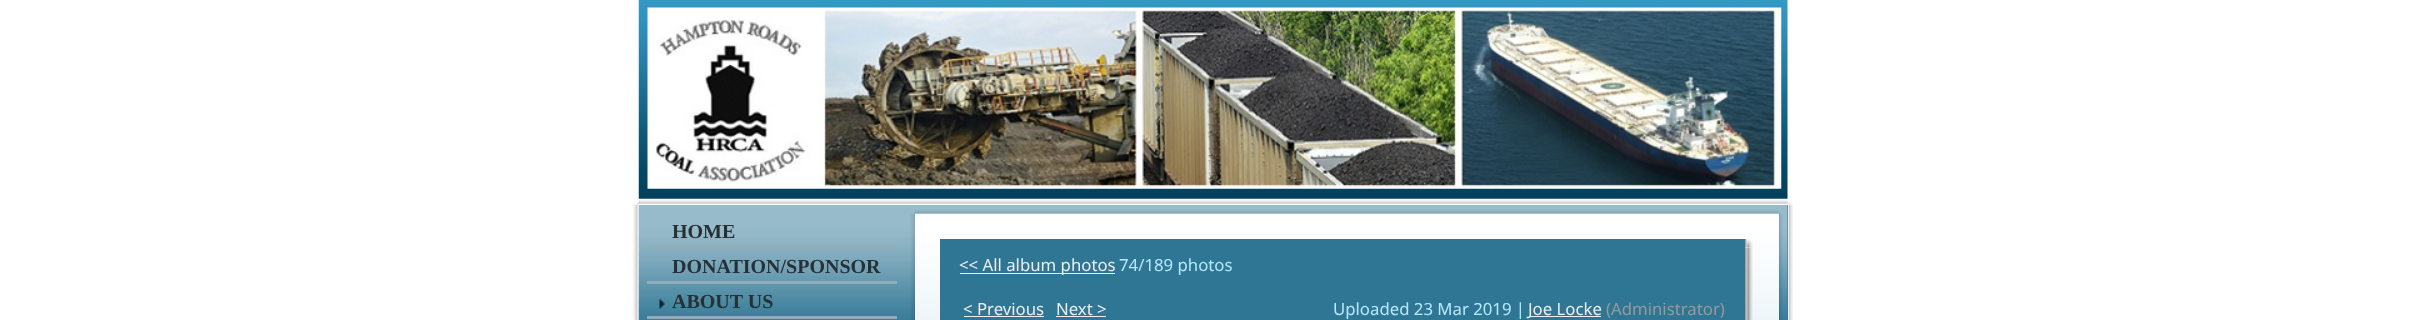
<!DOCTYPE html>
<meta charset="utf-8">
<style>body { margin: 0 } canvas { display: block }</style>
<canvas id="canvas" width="2425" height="320"></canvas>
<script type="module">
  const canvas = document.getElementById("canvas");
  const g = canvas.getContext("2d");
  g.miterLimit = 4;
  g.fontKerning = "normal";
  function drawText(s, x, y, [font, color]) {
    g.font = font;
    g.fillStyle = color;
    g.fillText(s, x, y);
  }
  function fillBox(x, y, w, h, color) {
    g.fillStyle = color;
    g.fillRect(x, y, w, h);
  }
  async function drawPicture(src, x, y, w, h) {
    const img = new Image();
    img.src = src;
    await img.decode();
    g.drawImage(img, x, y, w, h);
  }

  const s1 = ["bold 20px Liberation Serif", "#273135"];
  const s2 = ["16.75px Noto Sans", "#EEEEEE"];
  const s3 = ["16.75px Noto Sans", "#B6E9FF"];
  const s4 = ["16.75px Noto Sans", "#999999"];

  fillBox(0, 0, 2425, 320, "#FFFFFF");
  await drawPicture("pic1.png", 638, 0, 1150, 199);
  await drawPicture("pic2.png", 647, 7, 1135, 182);
  await drawPicture("pic3.png", 634, 200, 6, 5);
  await drawPicture("pic4.png", 1787, 201, 5, 4);
  await drawPicture("pic5.png", 638, 200, 1150, 5);
  await drawPicture("pic6.png", 632, 205, 7, 115);
  await drawPicture("pic7.png", 1788, 205, 5, 115);
  fillBox(1787, 205, 1, 115, "#2F7694");
  await drawPicture("pic8.png", 638, 205, 1150, 115);
  await drawPicture("pic13.png", 910, 213, 5, 107);
  await drawPicture("pic9.png", 914, 212, 2, 2);
  await drawPicture("pic14.png", 1779, 213, 4, 107);
  await drawPicture("pic10.png", 1779, 212, 2, 2);
  await drawPicture("pic11.png", 915, 210, 864, 4);
  fillBox(647, 246, 250, 3, "#90ACB7");
  drawText("HOME", 672, 238, s1);
  fillBox(647, 281, 250, 3, "#90ACB7");
  drawText("DONATION/SPONSOR", 672, 273, s1);
  fillBox(647, 316, 250, 3, "#90ACB7");
  await drawPicture("pic12.png", 659, 298, 6, 11);
  drawText("ABOUT US", 672, 308, s1);
  fillBox(915, 214, 864, 106, "#E4F0F5");
  await drawPicture("pic15.png", 915, 213, 864, 107);
  await drawPicture("pic17.png", 1745, 247, 8, 73);
  await drawPicture("pic16.png", 1745, 238, 8, 10);
  fillBox(940, 239, 805, 81, "#2F7694");
  fillBox(960, 273, 155, 1, "#EEEEEE");
  drawText("<< All album photos", 959, 271, s2);
  drawText("74/189 photos", 1119, 271, s3);
  drawText("< Previous", 963, 315, s2);
  fillBox(964, 316, 80, 1, "#EEEEEE");
  drawText("Next >", 1056, 315, s2);
  fillBox(1056, 316, 50, 1, "#EEEEEE");
  drawText("Uploaded 23 Mar 2019 |", 1333, 315, s3);
  fillBox(1529, 316, 72, 1, "#EEEEEE");
  drawText("Joe Locke", 1528, 315, s2);
  drawText("(Administrator)", 1606, 315, s4);
</script>
